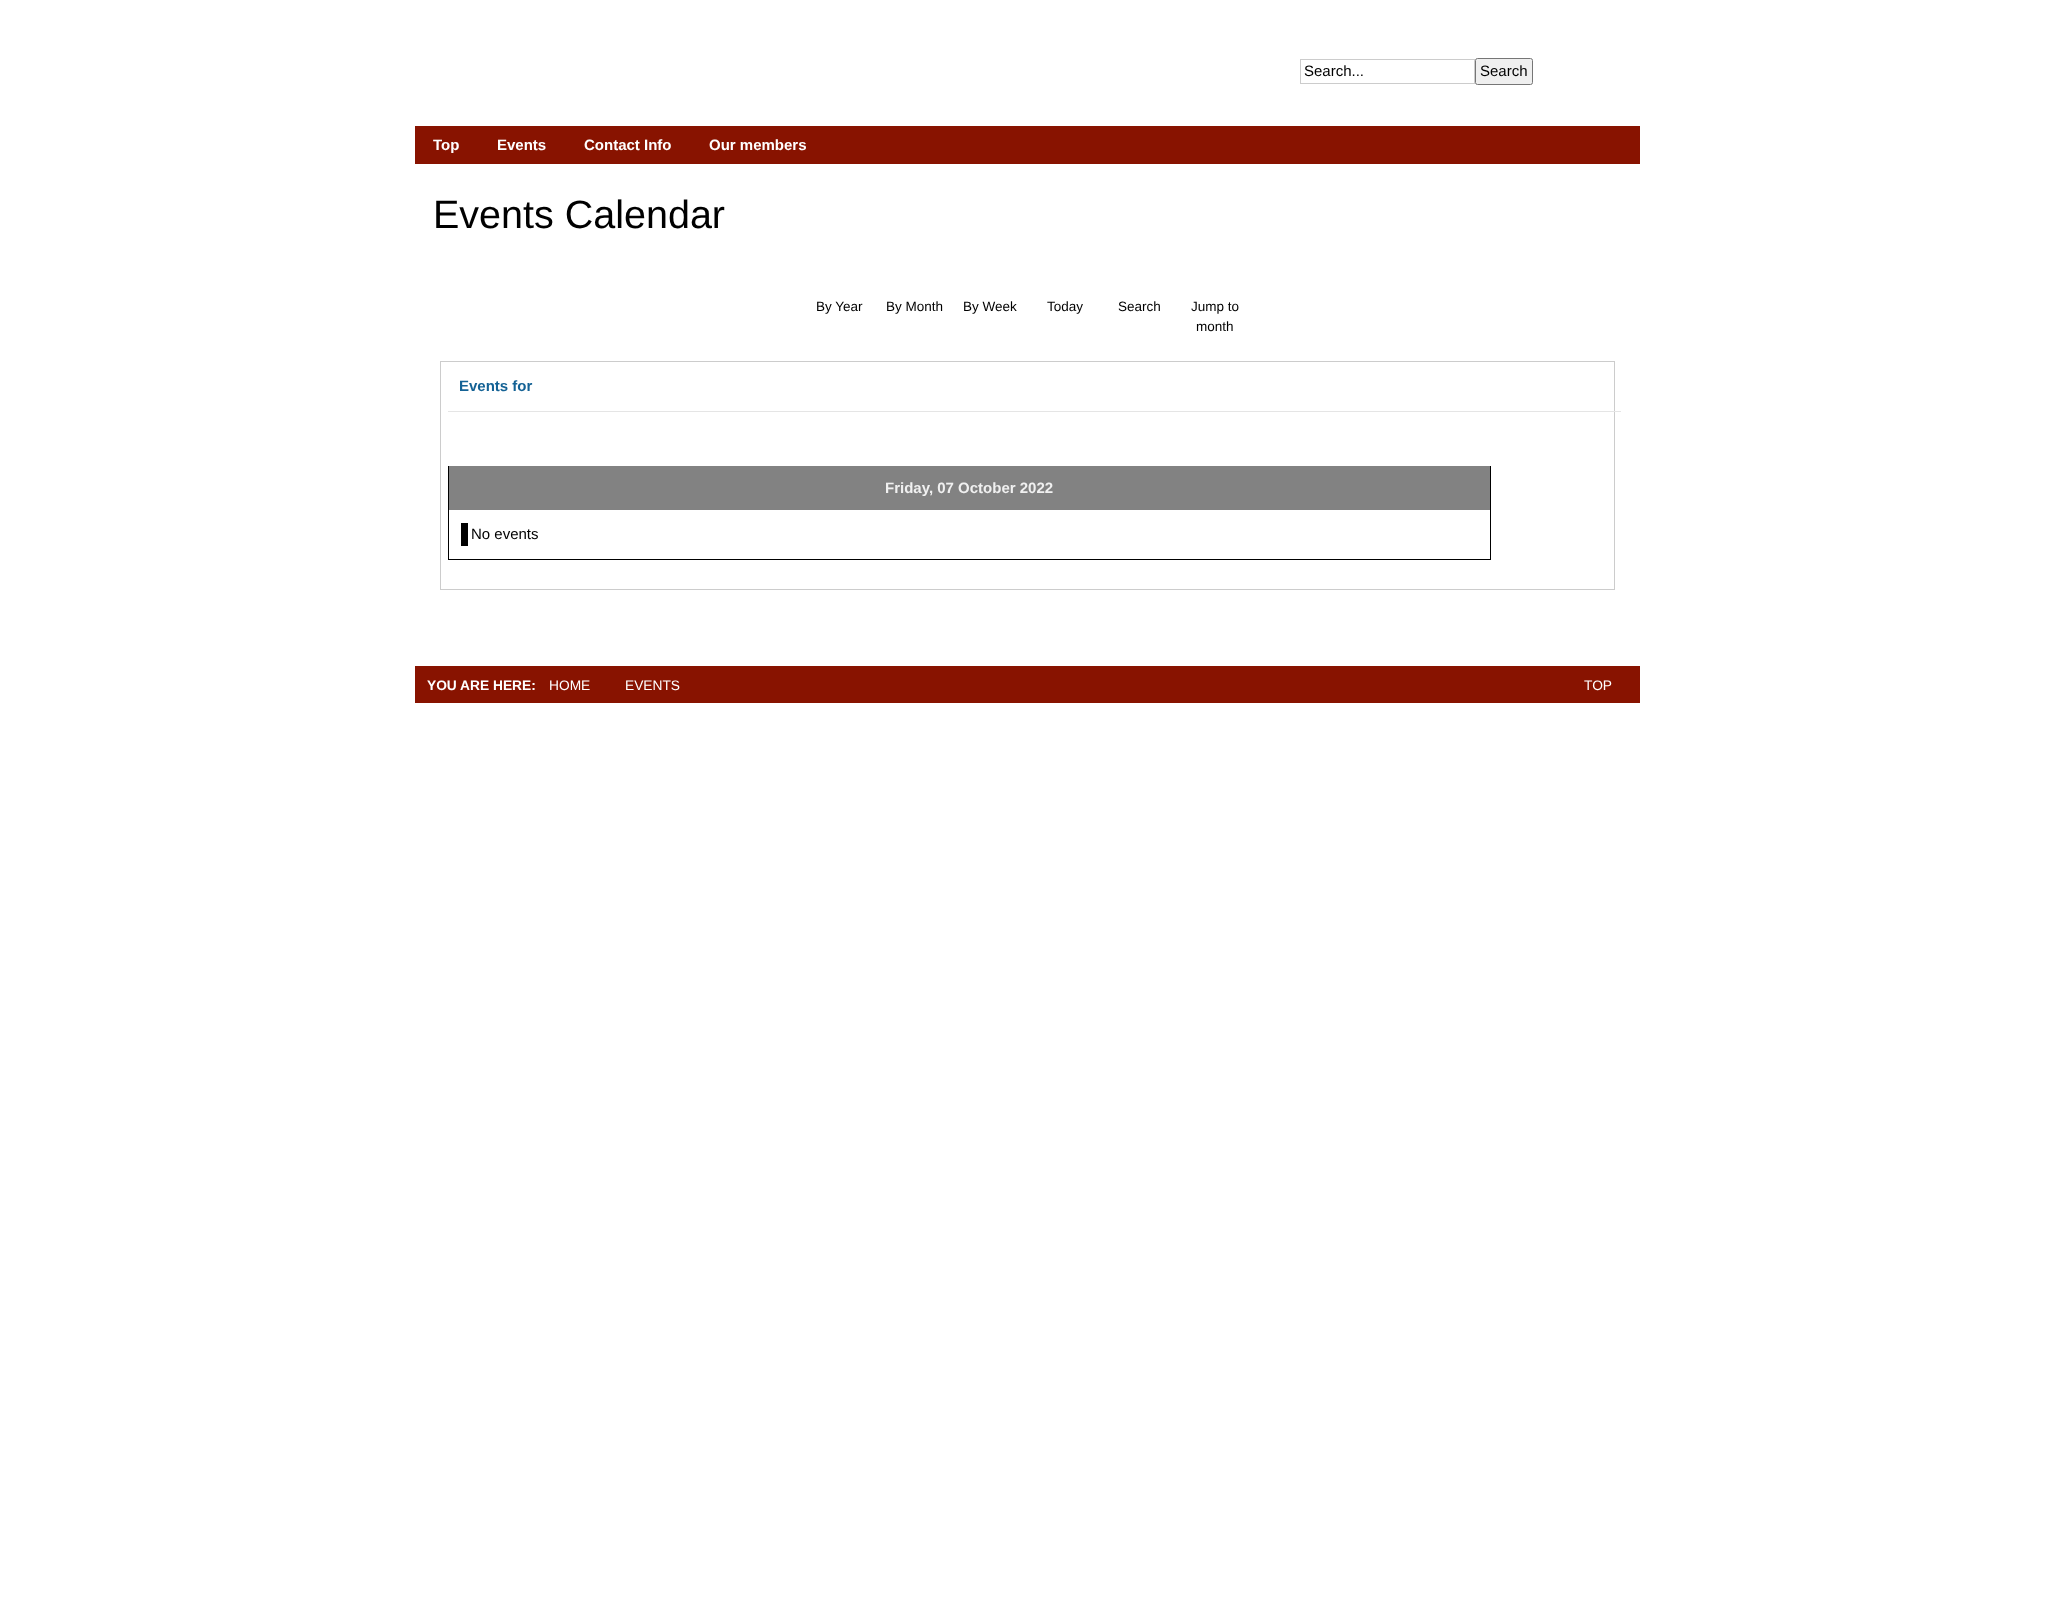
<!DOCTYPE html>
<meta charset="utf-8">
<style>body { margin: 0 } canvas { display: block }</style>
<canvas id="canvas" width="2053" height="1599"></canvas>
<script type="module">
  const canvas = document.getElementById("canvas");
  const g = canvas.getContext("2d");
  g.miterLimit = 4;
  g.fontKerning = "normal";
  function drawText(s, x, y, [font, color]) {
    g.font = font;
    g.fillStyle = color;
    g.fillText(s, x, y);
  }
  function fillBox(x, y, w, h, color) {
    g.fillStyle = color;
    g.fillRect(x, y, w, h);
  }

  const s1 = ["15px Liberation Sans", "#000000"];
  const s2 = ["bold 15px Liberation Sans", "#FFFFFF"];
  const s3 = ["39.5px Liberation Sans", "#000000"];
  const s4 = ["13.5px Liberation Sans", "#000000"];
  const s5 = ["bold 15px Liberation Sans", "#146295"];
  const s6 = ["bold 15px Liberation Sans", "#F0F0F0"];
  const s7 = ["bold 13.75px Liberation Sans", "#FFFFFF"];
  const s8 = ["13.75px Liberation Sans", "#FFFFFF"];

  fillBox(0, 0, 2053, 1599, "#FFFFFF");
  g.strokeStyle = "#CCCCCC";
  g.strokeRect(1300.5, 59.5, 174, 24);
  drawText("Search...", 1304, 76, s1);
  g.fillStyle = "#EFEFEF";
  g.beginPath();
  g.roundRect(1475.5, 58.5, 57, 26, 2);
  g.fill();
  g.strokeStyle = "#767676";
  g.stroke();
  drawText("Search", 1480, 76, s1);
  fillBox(415, 126, 1225, 38, "#881300");
  drawText("Top", 433, 150, s2);
  drawText("Events", 497, 150, s2);
  drawText("Contact Info", 584, 150, s2);
  drawText("Our members", 709, 150, s2);
  drawText("Events Calendar", 433, 228, s3);
  drawText("By Year", 816, 311, s4);
  drawText("By Month", 886, 311, s4);
  drawText("By Week", 963, 311, s4);
  drawText("Today", 1047, 311, s4);
  drawText("Search", 1118, 311, s4);
  drawText("Jump to", 1191, 311, s4);
  drawText("month", 1196, 331, s4);
  g.strokeStyle = "#CCCCCC";
  g.strokeRect(440.5, 361.5, 1174, 228);
  fillBox(448, 411, 1173, 1, "#E5E5E5");
  drawText("Events for", 459, 391, s5);
  fillBox(1490, 466, 1, 94, "#000000");
  fillBox(448, 559, 1043, 1, "#000000");
  fillBox(448, 466, 1, 94, "#000000");
  fillBox(449, 466, 1041, 44, "#828282");
  drawText("Friday, 07 October 2022", 885, 493, s6);
  fillBox(461, 523, 7, 23, "#000000");
  drawText("No events", 471, 539, s1);
  fillBox(415, 666, 1225, 37, "#881300");
  drawText("YOU ARE HERE:", 427, 690, s7);
  drawText("HOME", 549, 690, s8);
  drawText("EVENTS", 625, 690, s8);
  drawText("TOP", 1584, 690, s8);
</script>
